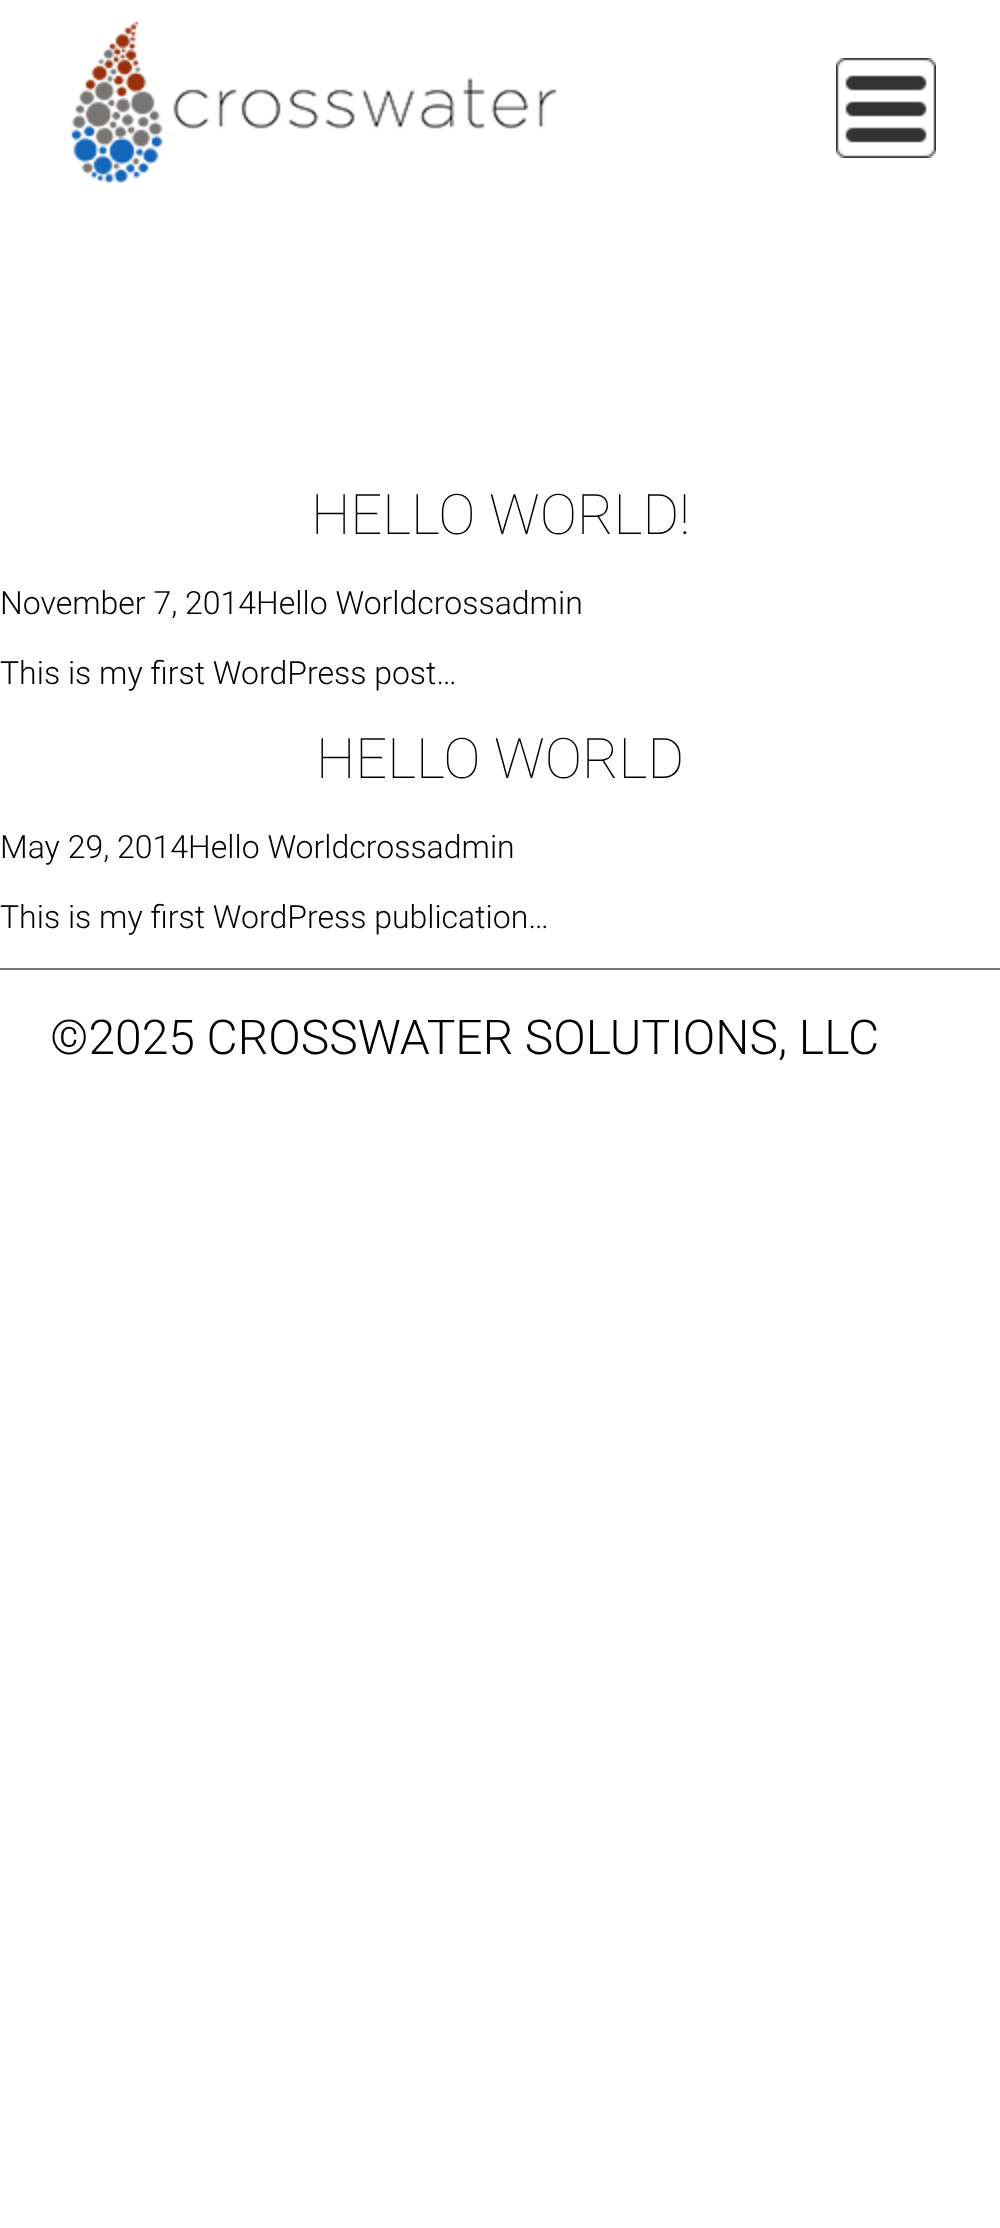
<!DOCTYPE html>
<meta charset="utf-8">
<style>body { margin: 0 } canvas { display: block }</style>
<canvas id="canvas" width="1000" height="2228"></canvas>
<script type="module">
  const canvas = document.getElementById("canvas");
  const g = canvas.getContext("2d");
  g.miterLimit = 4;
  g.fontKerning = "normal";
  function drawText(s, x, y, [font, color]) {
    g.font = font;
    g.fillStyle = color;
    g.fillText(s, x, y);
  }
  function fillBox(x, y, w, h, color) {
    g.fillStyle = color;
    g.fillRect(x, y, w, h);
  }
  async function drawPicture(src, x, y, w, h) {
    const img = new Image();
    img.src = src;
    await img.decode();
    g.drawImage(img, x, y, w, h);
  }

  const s1 = ["100 56px Roboto", "#000000"];
  const s2 = ["300 32px Roboto", "#000000"];
  const s3 = ["300 48px Roboto", "#000000"];

  fillBox(0, 0, 1000, 2228, "#FFFFFF");
  await drawPicture("pic1.png", 71, 21, 486, 162);
  await drawPicture("pic2.png", 836, 58, 100, 100);
  drawText("HELLO WORLD!", 311, 534, s1);
  drawText("November 7, 2014Hello Worldcrossadmin", 0, 614, s2);
  drawText("This is my first WordPress post…", 0, 684, s2);
  drawText("HELLO WORLD", 316, 778, s1);
  drawText("May 29, 2014Hello Worldcrossadmin", 0, 858, s2);
  drawText("This is my first WordPress publication…", 0, 928, s2);
  fillBox(0, 968, 1000, 2, "#787675");
  drawText("©2025 CROSSWATER SOLUTIONS, LLC", 50, 1054, s3);
</script>
